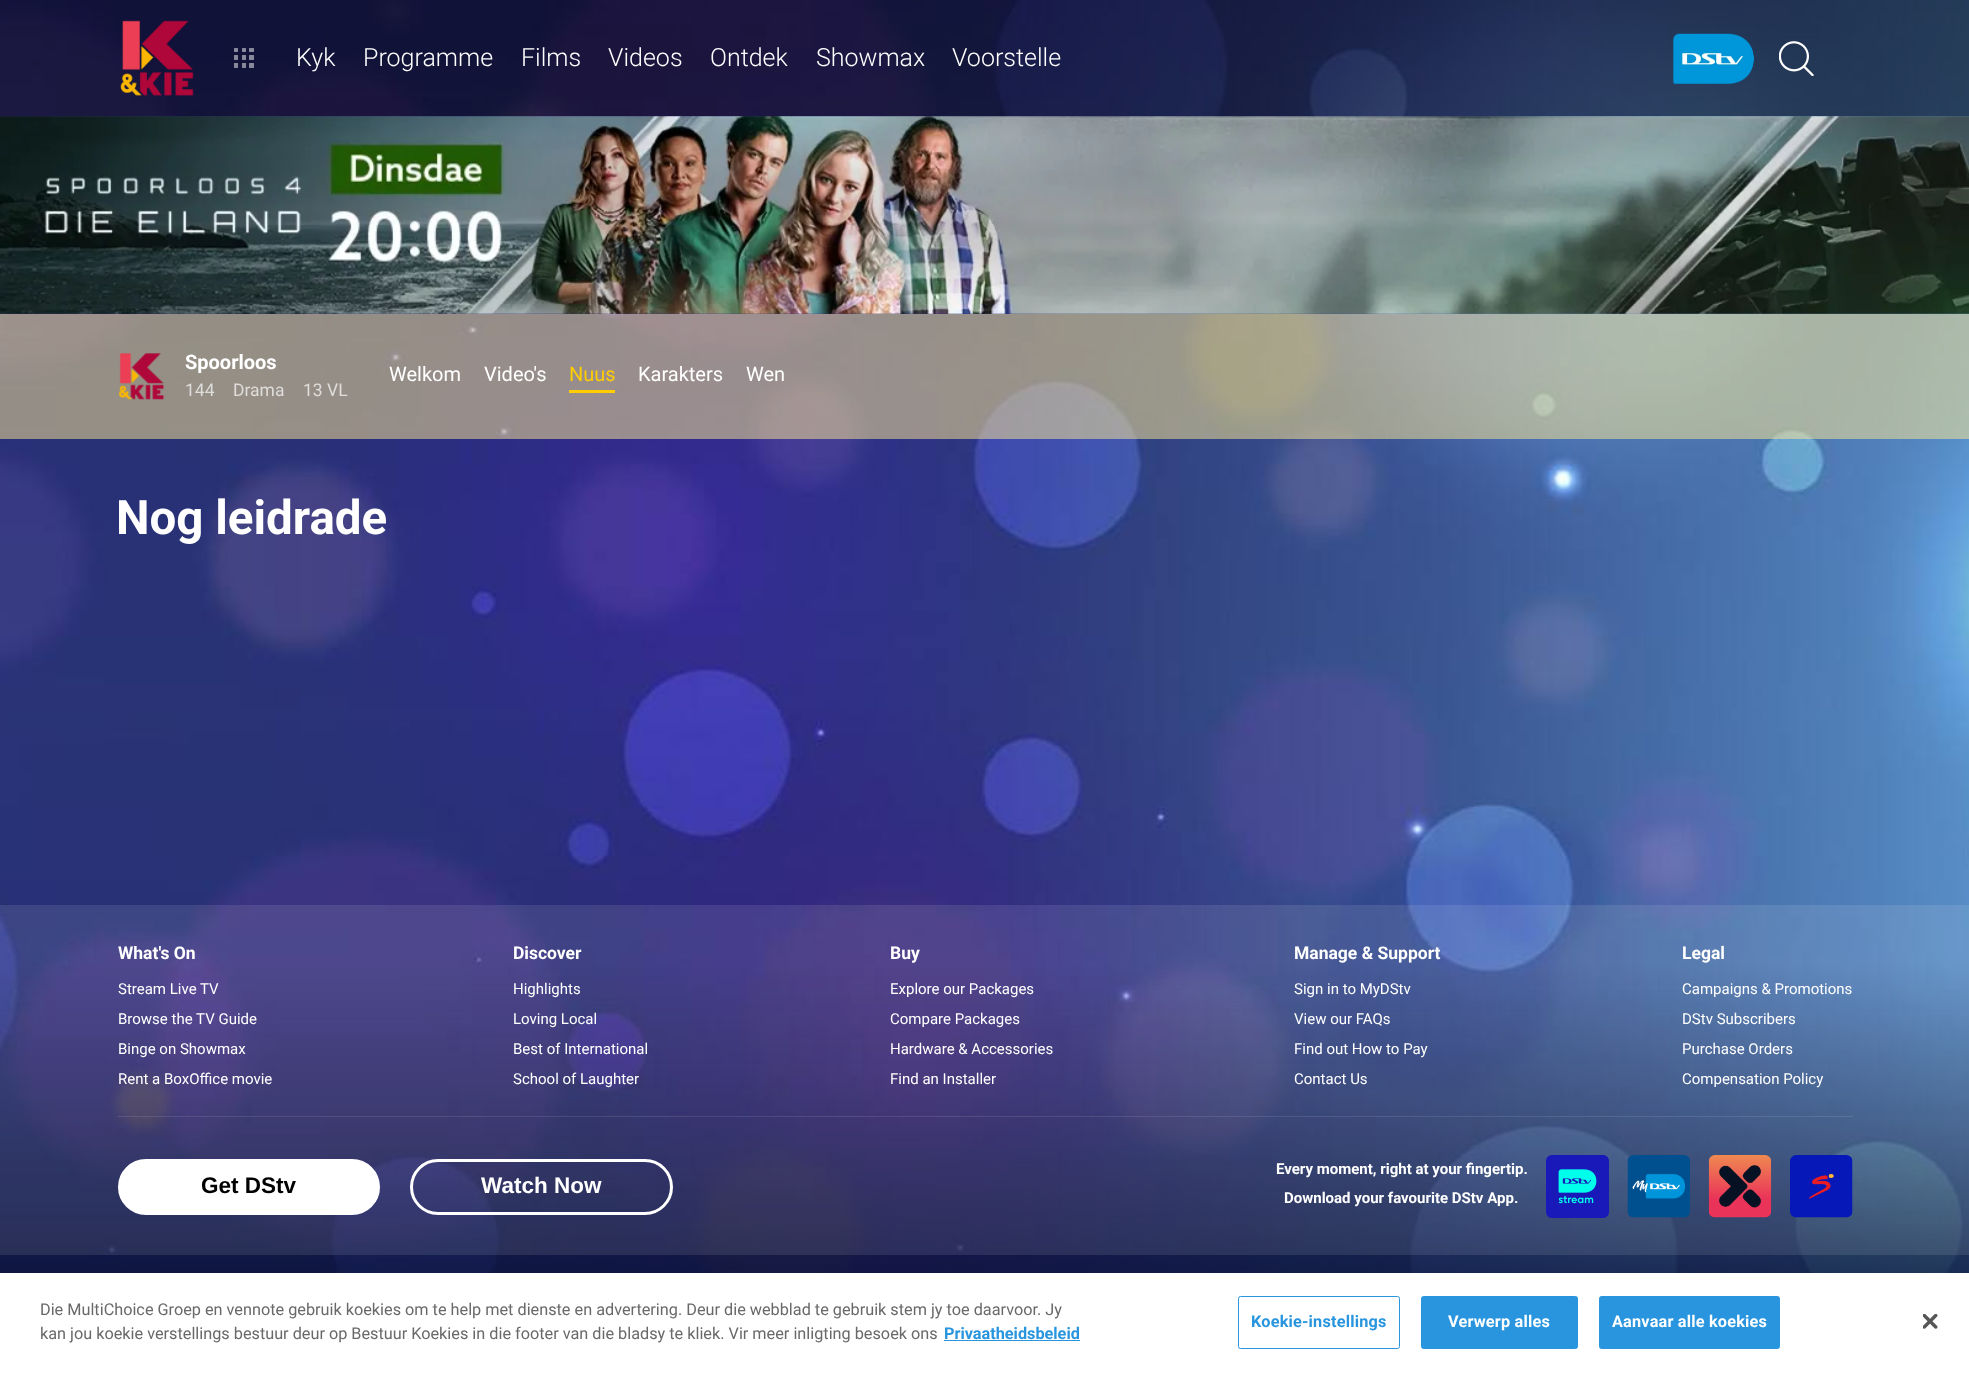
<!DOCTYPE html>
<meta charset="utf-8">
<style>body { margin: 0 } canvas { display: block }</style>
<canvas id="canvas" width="1969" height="1374"></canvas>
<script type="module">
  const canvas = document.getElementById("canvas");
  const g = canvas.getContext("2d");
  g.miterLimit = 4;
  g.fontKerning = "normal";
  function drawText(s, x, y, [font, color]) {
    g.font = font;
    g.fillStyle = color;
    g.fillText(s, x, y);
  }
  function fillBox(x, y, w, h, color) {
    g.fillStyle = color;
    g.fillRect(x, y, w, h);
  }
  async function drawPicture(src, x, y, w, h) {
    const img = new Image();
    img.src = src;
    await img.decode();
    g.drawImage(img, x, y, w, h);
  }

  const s1 = ["300 25px Roboto", "#FFFFFF"];
  const s2 = ["bold 20px Roboto", "#FFFFFF"];
  const s3 = ["17.5px Roboto", "#DFDDDB"];
  const s4 = ["20px Roboto", "#FFFFFF"];
  const s5 = ["20px Roboto", "#FFCD00"];
  const s6 = ["bold 47.5px Roboto", "#FFFFFF"];
  const s7 = ["bold 17.5px Roboto", "#FFFFFF"];
  const s8 = ["15px Roboto", "#FFFFFF"];
  const s9 = ["bold 22.5px Liberation Sans", "#000000"];
  const s10 = ["bold 22.5px Liberation Sans", "#FFFFFF"];
  const s11 = ["bold 15px Roboto", "#FFFFFF"];
  const s12 = ["16.25px Roboto", "#696969"];
  const s13 = ["bold 16.25px Roboto", "#2895DE"];
  const s14 = ["bold 16.25px Roboto", "#FFFFFF"];

  fillBox(0, 0, 1969, 1374, "#081031");
  await drawPicture("pic1.png", 0, 0, 1969, 1273);
  fillBox(0, 0, 1969, 116, "rgba(0, 0, 0, 0.5)");
  await drawPicture("pic2.png", 120, 20, 74, 76);
  await drawPicture("pic3.png", 234, 48, 20, 20);
  drawText("Kyk", 296, 66, s1);
  drawText("Programme", 363, 66, s1);
  drawText("Films", 521, 66, s1);
  drawText("Videos", 608, 66, s1);
  drawText("Ontdek", 710, 66, s1);
  drawText("Showmax", 816, 66, s1);
  drawText("Voorstelle", 952, 66, s1);
  await drawPicture("pic4.png", 1673, 33, 81, 51);
  await drawPicture("pic5.png", 1779, 41, 35, 35);
  await drawPicture("pic6.png", 0, 116, 1969, 198);
  fillBox(0, 314, 1969, 125, "rgba(255, 205, 0, 0.3)");
  fillBox(0, 314, 1969, 125, "rgba(255, 255, 255, 0.3)");
  await drawPicture("pic7.png", 118, 353, 47, 47);
  drawText("Spoorloos", 185, 369, s2);
  drawText("144", 185, 396, s3);
  drawText("Drama", 233, 396, s3);
  drawText("13 VL", 303, 396, s3);
  drawText("Welkom", 389, 381, s4);
  drawText("Video's", 484, 381, s4);
  fillBox(569, 390, 46, 3, "#FFCD00");
  drawText("Nuus", 569, 381, s5);
  drawText("Karakters", 638, 381, s4);
  drawText("Wen", 746, 381, s4);
  drawText("Nog leidrade", 116, 534, s6);
  fillBox(0, 905, 1969, 350, "rgba(255, 255, 255, 0.1)");
  fillBox(118, 1116, 1735, 1, "rgba(255, 255, 255, 0.1)");
  drawText("What's On", 118, 959, s7);
  drawText("Stream Live TV", 118, 994, s8);
  drawText("Browse the TV Guide", 118, 1024, s8);
  drawText("Binge on Showmax", 118, 1054, s8);
  drawText("Rent a BoxOffice movie", 118, 1084, s8);
  drawText("Discover", 513, 959, s7);
  drawText("Highlights", 513, 994, s8);
  drawText("Loving Local", 513, 1024, s8);
  drawText("Best of International", 513, 1054, s8);
  drawText("School of Laughter", 513, 1084, s8);
  drawText("Buy", 890, 959, s7);
  drawText("Explore our Packages", 890, 994, s8);
  drawText("Compare Packages", 890, 1024, s8);
  drawText("Hardware & Accessories", 890, 1054, s8);
  drawText("Find an Installer", 890, 1084, s8);
  drawText("Manage & Support", 1294, 959, s7);
  drawText("Sign in to MyDStv", 1294, 994, s8);
  drawText("View our FAQs", 1294, 1024, s8);
  drawText("Find out How to Pay", 1294, 1054, s8);
  drawText("Contact Us", 1294, 1084, s8);
  drawText("Legal", 1682, 959, s7);
  drawText("Campaigns & Promotions", 1682, 994, s8);
  drawText("DStv Subscribers", 1682, 1024, s8);
  drawText("Purchase Orders", 1682, 1054, s8);
  drawText("Compensation Policy", 1682, 1084, s8);
  g.beginPath();
  g.roundRect(119.5, 1160.5, 259, 53, 26.5);
  g.fill();
  g.strokeStyle = "#FFFFFF";
  g.lineWidth = 3;
  g.stroke();
  drawText("Get DStv", 201, 1193, s9);
  g.beginPath();
  g.roundRect(411.5, 1160.5, 260, 53, 26.5);
  g.stroke();
  drawText("Watch Now", 481, 1193, s10);
  drawText("Every moment, right at your fingertip.", 1276, 1174, s11);
  drawText("Download your favourite DStv App.", 1284, 1203, s11);
  await drawPicture("pic8.png", 1546, 1155, 63, 63);
  await drawPicture("pic9.png", 1627, 1155, 63, 63);
  await drawPicture("pic10.png", 1708, 1155, 64, 63);
  await drawPicture("pic11.png", 1790, 1155, 63, 63);
  fillBox(0, 1273, 1969, 101, "#FFFFFF");
  drawText("Die MultiChoice Groep en vennote gebruik koekies om te help met dienste en advertering. Deur die webblad te gebruik stem jy toe daarvoor. Jy", 40, 1315, s12);
  drawText("kan jou koekie verstellings bestuur deur op Bestuur Koekies in die footer van die bladsy te kliek. Vir meer inligting besoek ons", 40, 1339, s12);
  drawText("Privaatheidsbeleid", 944, 1339, s13);
  fillBox(944, 1340, 136, 1, "#2895DE");
  g.beginPath();
  g.roundRect(1238.5, 1296.5, 161, 52, 2);
  g.strokeStyle = "#2895DE";
  g.lineWidth = 1;
  g.stroke();
  g.letterSpacing = "0.2px";
  drawText("Koekie-instellings", 1251, 1327, s13);
  g.beginPath();
  g.roundRect(1421.5, 1296.5, 156, 52, 2);
  g.fill();
  g.stroke();
  drawText("Verwerp alles", 1448, 1327, s14);
  g.fillStyle = "#2895DE";
  g.beginPath();
  g.roundRect(1599.5, 1296.5, 180, 52, 2);
  g.fill();
  g.stroke();
  drawText("Aanvaar alle koekies", 1612, 1327, s14);
  await drawPicture("pic12.png", 1923, 1314, 15, 15);
</script>
